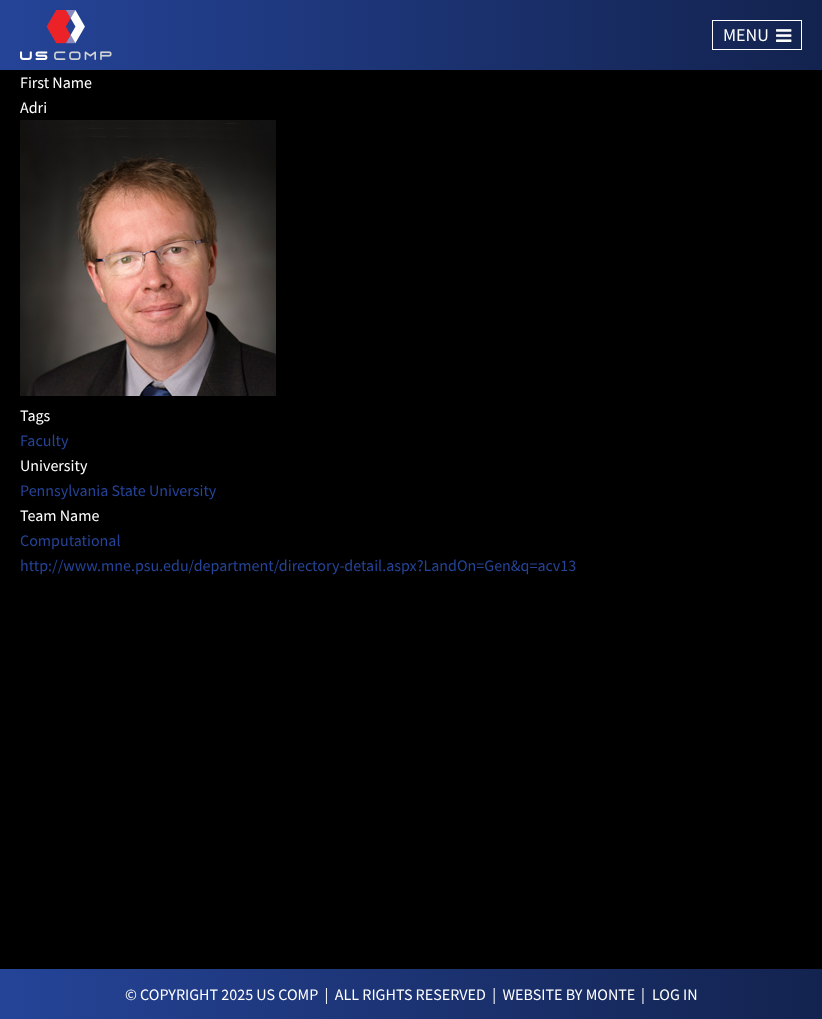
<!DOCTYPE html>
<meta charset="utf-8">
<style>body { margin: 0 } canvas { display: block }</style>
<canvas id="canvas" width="822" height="1019"></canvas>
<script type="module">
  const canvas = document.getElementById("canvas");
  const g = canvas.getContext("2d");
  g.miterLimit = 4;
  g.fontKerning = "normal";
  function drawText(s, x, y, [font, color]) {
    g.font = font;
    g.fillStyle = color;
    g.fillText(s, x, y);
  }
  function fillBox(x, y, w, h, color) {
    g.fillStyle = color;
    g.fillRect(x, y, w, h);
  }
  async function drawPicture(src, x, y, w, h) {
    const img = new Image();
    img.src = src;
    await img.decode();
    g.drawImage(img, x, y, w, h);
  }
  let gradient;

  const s1 = ["18px Source Sans Pro", "#FFFFFF"];
  const s2 = ["16px Source Sans Pro", "#FFFFFF"];
  const s3 = ["16px Source Sans Pro", "#254498"];

  fillBox(0, 0, 822, 1019, "#000000");
  gradient = g.createLinearGradient(0, 35, 822, 35);
  gradient.addColorStop(0, "#254498");
  gradient.addColorStop(1, "#13234F");
  g.fillStyle = gradient;
  g.fillRect(0, 0, 822, 70);
  await drawPicture("pic1.png", 20, 10, 92, 50);
  g.strokeStyle = "#FFFFFF";
  g.strokeRect(712.5, 20.5, 89, 29);
  drawText("MENU", 723, 41, s1);
  await drawPicture("pic2.png", 776, 29, 16, 13);
  drawText("First Name", 20, 88, s2);
  drawText("Adri", 20, 113, s2);
  await drawPicture("pic3.png", 20, 120, 256, 276);
  drawText("Tags", 20, 421, s2);
  drawText("Faculty", 20, 446, s3);
  drawText("University", 20, 471, s2);
  drawText("Pennsylvania State University", 20, 496, s3);
  drawText("Team Name", 20, 521, s2);
  drawText("Computational", 20, 546, s3);
  drawText("http://www.mne.psu.edu/department/directory-detail.aspx?LandOn=Gen&q=acv13", 20, 571, s3);
  gradient = g.createLinearGradient(0, 994, 822, 994);
  gradient.addColorStop(0, "#254498");
  gradient.addColorStop(1, "#13234F");
  g.fillStyle = gradient;
  g.fillRect(0, 969, 822, 50);
  drawText("© COPYRIGHT 2025 US COMP  |  ALL RIGHTS RESERVED  |  WEBSITE BY MONTE", 125, 1000, s2);
  drawText("|", 641, 1000, s2);
  drawText("LOG IN", 652, 1000, s2);
</script>
